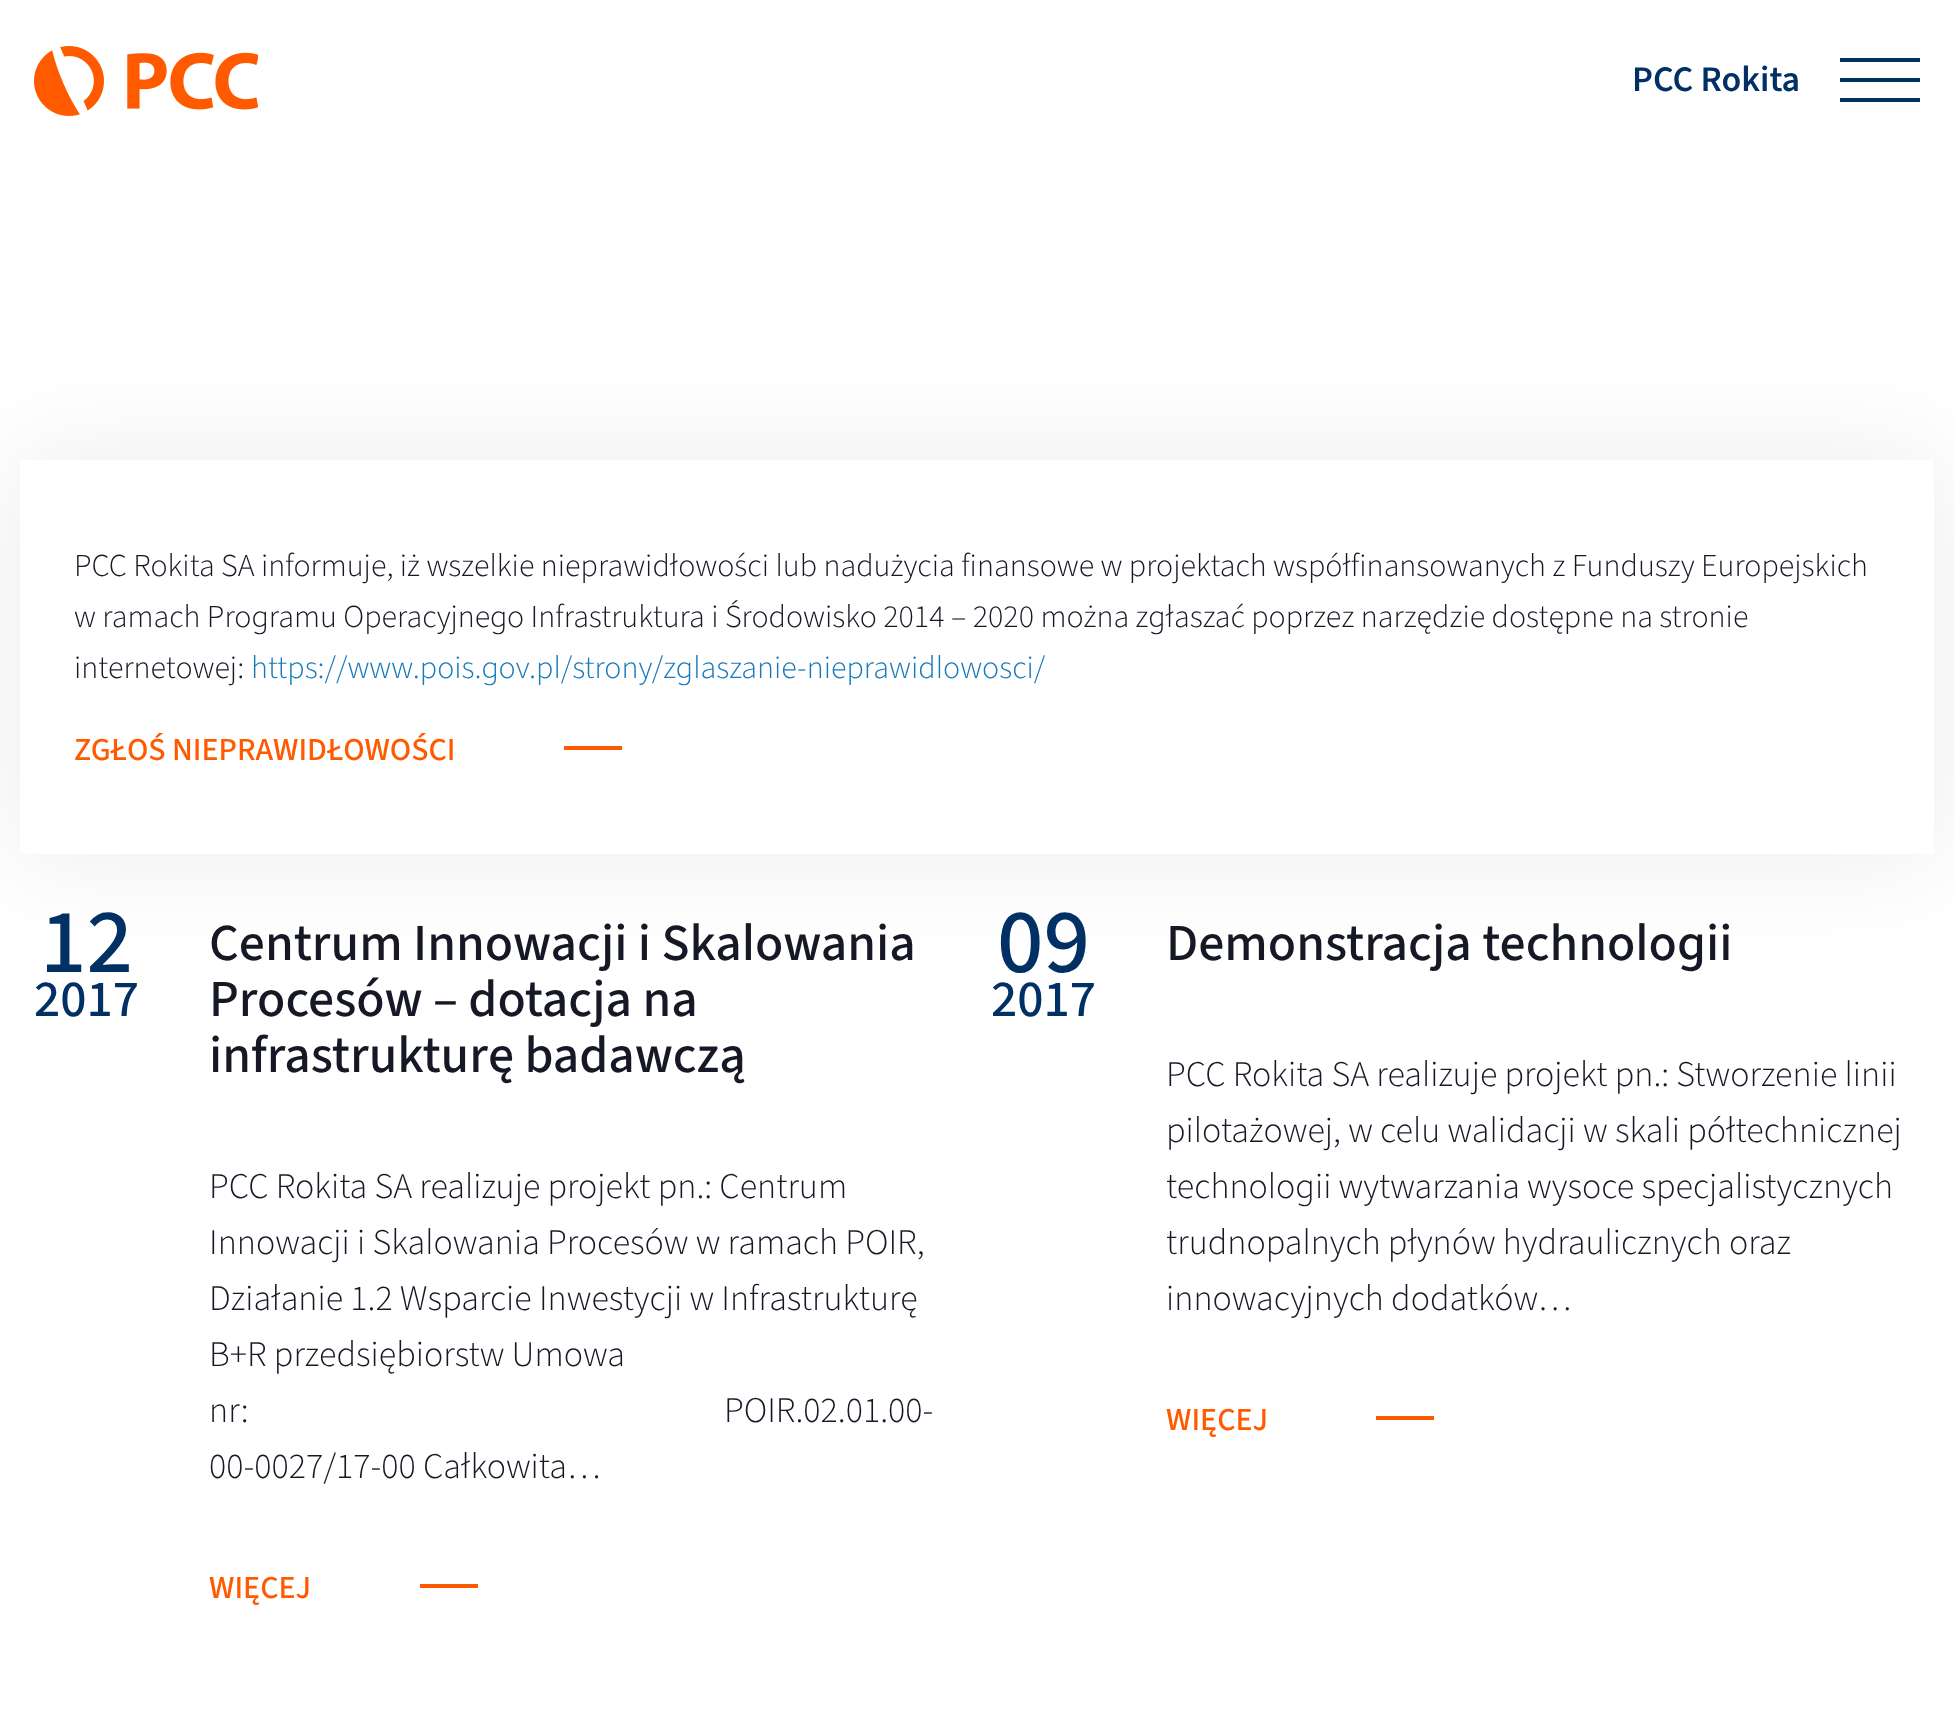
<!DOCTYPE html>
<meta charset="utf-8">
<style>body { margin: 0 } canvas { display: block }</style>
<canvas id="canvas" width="1954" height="1731"></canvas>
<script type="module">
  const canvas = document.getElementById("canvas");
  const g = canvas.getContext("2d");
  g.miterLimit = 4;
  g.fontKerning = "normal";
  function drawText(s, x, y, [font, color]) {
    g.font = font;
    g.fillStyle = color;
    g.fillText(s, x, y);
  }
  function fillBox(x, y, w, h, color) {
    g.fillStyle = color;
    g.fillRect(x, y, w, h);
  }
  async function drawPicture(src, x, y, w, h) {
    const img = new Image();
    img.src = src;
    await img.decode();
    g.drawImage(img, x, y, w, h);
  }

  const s1 = ["600 36px 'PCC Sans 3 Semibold'", "#003064"];
  const s2 = ["300 32px 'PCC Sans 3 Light'", "#161925"];
  const s3 = ["300 32px 'PCC Sans 3 Light'", "#1779BA"];
  const s4 = ["500 32px 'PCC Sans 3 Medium'", "#FF5A00"];
  const s5 = ["500 92px 'PCC Sans 3 Medium'", "#003064"];
  const s6 = ["500 52px 'PCC Sans 3 Medium'", "#003064"];
  const s7 = ["500 52px 'PCC Sans 3 Medium'", "#161925"];
  const s8 = ["300 36px 'PCC Sans 3 Light'", "#161925"];

  fillBox(0, 0, 1954, 1731, "#FFFFFF");
  await drawPicture("pic1.png", 34, 46, 224, 70);
  drawText("PCC Rokita", 1632, 91, s1);
  fillBox(1840, 78, 80, 4, "#003064");
  fillBox(1840, 58, 80, 4, "#003064");
  fillBox(1840, 98, 80, 4, "#003064");
  g.save();
  g.beginPath();
  g.moveTo(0, 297);
  g.lineTo(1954, 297);
  g.lineTo(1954, 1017);
  g.lineTo(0, 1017);
  g.closePath();
  g.moveTo(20, 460);
  g.lineTo(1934, 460);
  g.lineTo(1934, 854);
  g.lineTo(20, 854);
  g.closePath();
  g.clip("evenodd");
  g.fillStyle = "rgba(0, 0, 0, 0.08)";
  g.filter = "blur(54px)";
  g.beginPath();
  g.rect(20, 460, 1914, 394);
  g.fill();
  g.filter = "none";
  g.restore();
  drawText("PCC Rokita SA informuje, iż wszelkie nieprawidłowości lub nadużycia finansowe w projektach współfinansowanych z Funduszy Europejskich", 74, 576, s2);
  drawText("w ramach Programu Operacyjnego Infrastruktura i Środowisko 2014 – 2020 można zgłaszać poprzez narzędzie dostępne na stronie", 74, 627, s2);
  drawText("internetowej:", 74, 678, s2);
  drawText("https://www.pois.gov.pl/strony/zglaszanie-nieprawidlowosci/", 251, 678, s3);
  drawText("ZGŁOŚ NIEPRAWIDŁOWOŚCI", 74, 760, s4);
  fillBox(564, 746, 58, 4, "#FF5A00");
  drawText("12", 40, 972, s5);
  drawText("2017", 34, 1016, s6);
  drawText("Centrum Innowacji i Skalowania", 209, 960, s7);
  drawText("Procesów – dotacja na", 209, 1016, s7);
  drawText("infrastrukturę badawczą", 209, 1072, s7);
  drawText("PCC Rokita SA realizuje projekt pn.: Centrum", 209, 1198, s8);
  drawText("Innowacji i Skalowania Procesów w ramach POIR,", 209, 1254, s8);
  drawText("Działanie 1.2 Wsparcie Inwestycji w Infrastrukturę", 209, 1310, s8);
  drawText("B+R przedsiębiorstw Umowa", 209, 1366, s8);
  drawText("nr:                                                                  POIR.02.01.00-", 209, 1422, s8);
  drawText("00-0027/17-00 Całkowita…", 209, 1478, s8);
  drawText("WIĘCEJ", 209, 1598, s4);
  fillBox(420, 1584, 58, 4, "#FF5A00");
  drawText("09", 997, 972, s5);
  drawText("2017", 991, 1016, s6);
  drawText("Demonstracja technologii", 1166, 960, s7);
  drawText("PCC Rokita SA realizuje projekt pn.: Stworzenie linii", 1166, 1086, s8);
  drawText("pilotażowej, w celu walidacji w skali półtechnicznej", 1166, 1142, s8);
  drawText("technologii wytwarzania wysoce specjalistycznych", 1166, 1198, s8);
  drawText("trudnopalnych płynów hydraulicznych oraz", 1166, 1254, s8);
  drawText("innowacyjnych dodatków…", 1166, 1310, s8);
  drawText("WIĘCEJ", 1166, 1430, s4);
  fillBox(1376, 1416, 58, 4, "#FF5A00");
</script>
